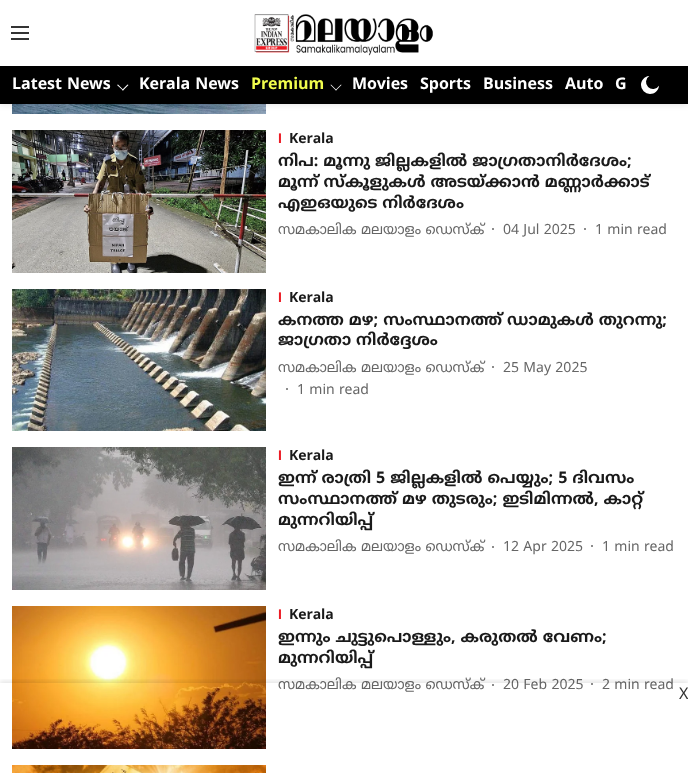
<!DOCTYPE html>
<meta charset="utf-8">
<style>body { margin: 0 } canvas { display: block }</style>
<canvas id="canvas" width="688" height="773"></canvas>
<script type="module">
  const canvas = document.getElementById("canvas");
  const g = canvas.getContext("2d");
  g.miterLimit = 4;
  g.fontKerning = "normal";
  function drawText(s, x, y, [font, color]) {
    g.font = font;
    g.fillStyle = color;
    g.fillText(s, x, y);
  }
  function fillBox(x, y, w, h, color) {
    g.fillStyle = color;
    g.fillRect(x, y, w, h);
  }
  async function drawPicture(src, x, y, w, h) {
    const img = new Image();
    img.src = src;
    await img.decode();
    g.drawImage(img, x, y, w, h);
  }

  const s1 = ["bold 16px Noto Sans Malayalam", "#FFFFFF"];
  const s2 = ["bold 16px Noto Sans Malayalam", "#F1FD4D"];
  const s3 = ["bold 14px Liberation Sans", "#EC1B24"];
  const s4 = ["bold 14px Noto Sans Malayalam", "#1A1A1A"];
  const s5 = ["bold 16px Noto Sans Malayalam", "#1A1A1A"];
  const s6 = ["14px Noto Sans Malayalam", "#666666"];
  const s7 = ["16px Noto Sans Malayalam", "#333333"];

  fillBox(0, 0, 688, 773, "#FFFFFF");
  await drawPicture("pic4.png", 12, 104, 254, 10);
  g.fillStyle = "rgba(0, 0, 0, 0.1)";
  g.filter = "blur(3px)";
  g.beginPath();
  g.rect(0, 1, 688, 104);
  g.fill();
  g.filter = "none";
  fillBox(0, 0, 688, 66, "#FFFFFF");
  await drawPicture("pic1.png", 11, 26, 18, 14);
  await drawPicture("pic2.png", 254, 14, 179, 42);
  fillBox(0, 66, 688, 38, "#000000");
  drawText("Latest News", 12, 89, s1);
  g.beginPath();
  g.moveTo(127.5, 84.5);
  g.lineTo(128.5, 85);
  g.lineTo(123, 90.5);
  g.lineTo(122, 90);
  g.closePath();
  g.fill();
  g.beginPath();
  g.moveTo(118, 84.5);
  g.lineTo(123.5, 90);
  g.lineTo(123, 90.5);
  g.lineTo(117, 85);
  g.closePath();
  g.fill();
  drawText("Kerala News", 139, 89, s1);
  drawText("Premium", 251, 89, s2);
  g.fillStyle = "#FFFFFF";
  g.beginPath();
  g.moveTo(341, 84.5);
  g.lineTo(341.5, 85);
  g.lineTo(336, 90.5);
  g.lineTo(335.5, 90);
  g.closePath();
  g.fill();
  g.beginPath();
  g.moveTo(331, 84.5);
  g.lineTo(336.5, 90);
  g.lineTo(336, 90.5);
  g.lineTo(330.5, 85);
  g.closePath();
  g.fill();
  drawText("Movies", 352, 89, s1);
  drawText("Sports", 420, 89, s1);
  drawText("Business", 483, 89, s1);
  drawText("Auto", 565, 89, s1);
  drawText("G", 615, 89, s1);
  await drawPicture("pic3.png", 641, 76, 18, 18);
  await drawPicture("pic5.png", 12, 130, 254, 143);
  drawText("I", 278, 143, s3);
  drawText("Kerala", 289, 143, s4);
  drawText("നിപ: മൂന്നു ജില്ലകളില്‍ ജാഗ്രതാനിര്‍ദേശം;", 278, 166, s5);
  drawText("മൂന്ന് സ്‌കൂളുകള്‍ അടയ്ക്കാന്‍ മണ്ണാര്‍ക്കാട്", 278, 187, s5);
  drawText("എഇഒയുടെ നിര്‍ദേശം", 278, 208, s5);
  drawText("സമകാലിക മലയാളം ഡെസ്ക്", 278, 234, s6);
  g.beginPath();
  g.arc(493, 229, 1, 0, Math.PI * 2);
  g.fill();
  drawText("04 Jul 2025", 503, 234, s6);
  g.beginPath();
  g.arc(585, 229, 1, 0, Math.PI * 2);
  g.fill();
  drawText("1 min read", 595, 234, s6);
  await drawPicture("pic6.png", 12, 289, 254, 142);
  drawText("I", 278, 302, s3);
  drawText("Kerala", 289, 302, s4);
  drawText("കനത്ത മഴ; സംസ്ഥാനത്ത് ഡാമുകൾ തുറന്നു;", 278, 325, s5);
  drawText("ജാഗ്രതാ നിർദ്ദേശം", 278, 345, s5);
  drawText("സമകാലിക മലയാളം ഡെസ്ക്", 278, 372, s6);
  g.beginPath();
  g.arc(493, 367, 1, 0, Math.PI * 2);
  g.fill();
  drawText("25 May 2025", 503, 372, s6);
  g.beginPath();
  g.arc(287, 389, 1, 0, Math.PI * 2);
  g.fill();
  drawText("1 min read", 297, 394, s6);
  await drawPicture("pic7.png", 12, 447, 254, 143);
  drawText("I", 278, 460, s3);
  drawText("Kerala", 289, 460, s4);
  drawText("ഇന്ന് രാത്രി 5 ജില്ലകളിൽ പെയ്യും; 5 ദിവസം", 278, 483, s5);
  drawText("സംസ്ഥാനത്ത് മഴ തുടരും; ഇടിമിന്നൽ, കാറ്റ്", 278, 504, s5);
  drawText("മുന്നറിയിപ്പ്", 278, 525, s5);
  drawText("സമകാലിക മലയാളം ഡെസ്ക്", 278, 551, s6);
  g.beginPath();
  g.arc(493, 547, 1, 0, Math.PI * 2);
  g.fill();
  drawText("12 Apr 2025", 503, 551, s6);
  g.beginPath();
  g.arc(592, 546, 1, 0, Math.PI * 2);
  g.fill();
  drawText("1 min read", 602, 551, s6);
  await drawPicture("pic8.png", 12, 606, 254, 143);
  drawText("I", 278, 619, s3);
  drawText("Kerala", 289, 619, s4);
  drawText("ഇന്നും ചുട്ടുപൊള്ളും, കരുതൽ വേണം;", 278, 642, s5);
  drawText("മുന്നറിയിപ്പ്", 278, 663, s5);
  drawText("സമകാലിക മലയാളം ഡെസ്ക്", 278, 689, s6);
  g.beginPath();
  g.arc(493, 685, 1, 0, Math.PI * 2);
  g.fill();
  drawText("20 Feb 2025", 503, 689, s6);
  g.beginPath();
  g.arc(592, 684, 1, 0, Math.PI * 2);
  g.fill();
  drawText("2 min read", 602, 689, s6);
  await drawPicture("pic9.png", 12, 765, 254, 8);
  g.save();
  g.beginPath();
  g.rect(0, 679, 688, 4);
  g.clip();
  g.fillStyle = "rgba(0, 0, 0, 0.1)";
  g.filter = "blur(2.5px)";
  g.beginPath();
  g.rect(0, 681, 688, 90);
  g.fill();
  g.filter = "none";
  g.restore();
  drawText("X", 679, 699, s7);
</script>
